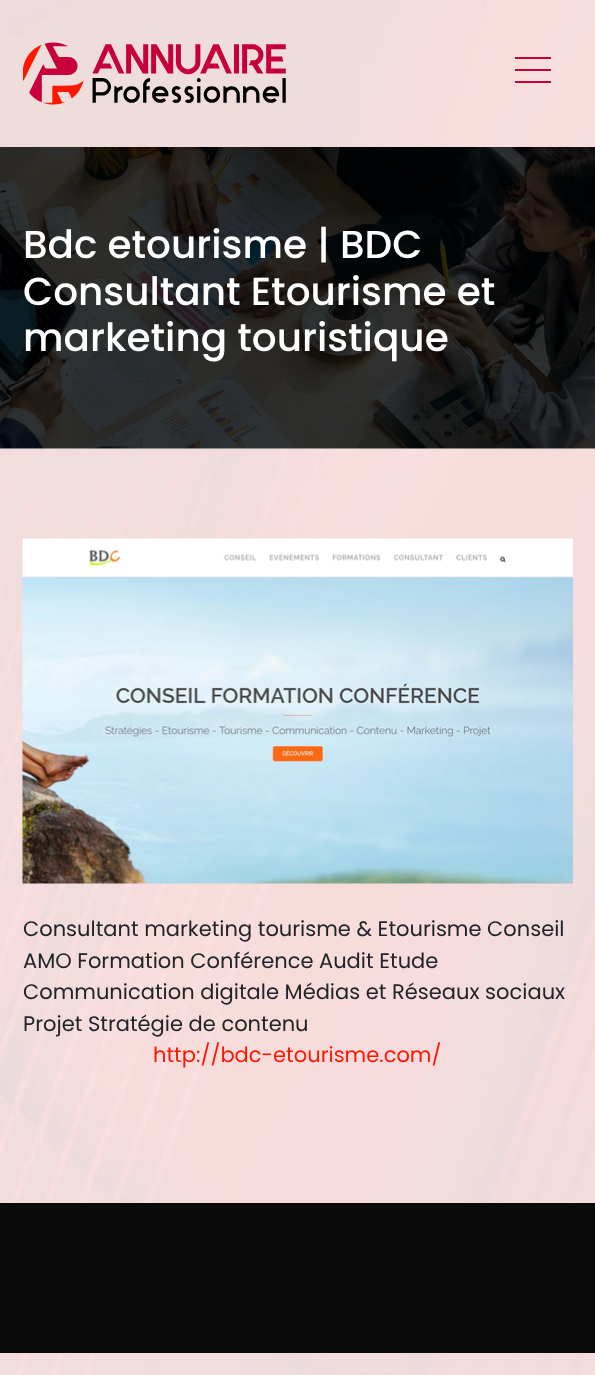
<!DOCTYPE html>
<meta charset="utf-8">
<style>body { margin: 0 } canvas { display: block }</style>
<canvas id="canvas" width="595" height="1375"></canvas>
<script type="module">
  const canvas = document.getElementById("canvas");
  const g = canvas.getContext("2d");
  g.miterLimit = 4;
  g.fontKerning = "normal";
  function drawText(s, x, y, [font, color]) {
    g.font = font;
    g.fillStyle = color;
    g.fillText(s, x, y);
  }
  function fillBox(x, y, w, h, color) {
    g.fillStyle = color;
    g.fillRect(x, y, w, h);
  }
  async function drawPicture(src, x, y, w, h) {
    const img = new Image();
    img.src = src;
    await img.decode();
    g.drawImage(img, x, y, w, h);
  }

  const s1 = ["500 39px Poppins", "#FFFFFF"];
  const s2 = ["21px Poppins", "#212529"];
  const s3 = ["21px Poppins", "#FF1700"];

  fillBox(0, 0, 595, 1375, "#FFFFFF");
  await drawPicture("pic1.png", 0, 0, 595, 1375);
  await drawPicture("pic2.png", 23, 42, 263, 63);
  fillBox(515, 57, 36, 2, "#C70039");
  fillBox(515, 69, 36, 2, "#C70039");
  fillBox(515, 81, 36, 2, "#C70039");
  fillBox(0, 448, 595, 1, "#EEEEEE");
  await drawPicture("pic3.png", 0, 147, 595, 302);
  drawText("Bdc etourisme | BDC", 23, 258, s1);
  drawText("Consultant Etourisme et", 23, 305, s1);
  drawText("marketing touristique", 23, 351, s1);
  await drawPicture("pic4.png", 22, 538, 551, 346);
  drawText("Consultant marketing tourisme & Etourisme Conseil", 23, 936, s2);
  drawText("AMO Formation Conférence Audit Etude", 23, 968, s2);
  drawText("Communication digitale Médias et Réseaux sociaux", 23, 999, s2);
  drawText("Projet Stratégie de contenu", 23, 1031, s2);
  drawText("http://bdc-etourisme.com/", 153, 1062, s3);
  fillBox(0, 1203, 595, 150, "#0A0A0A");
</script>
